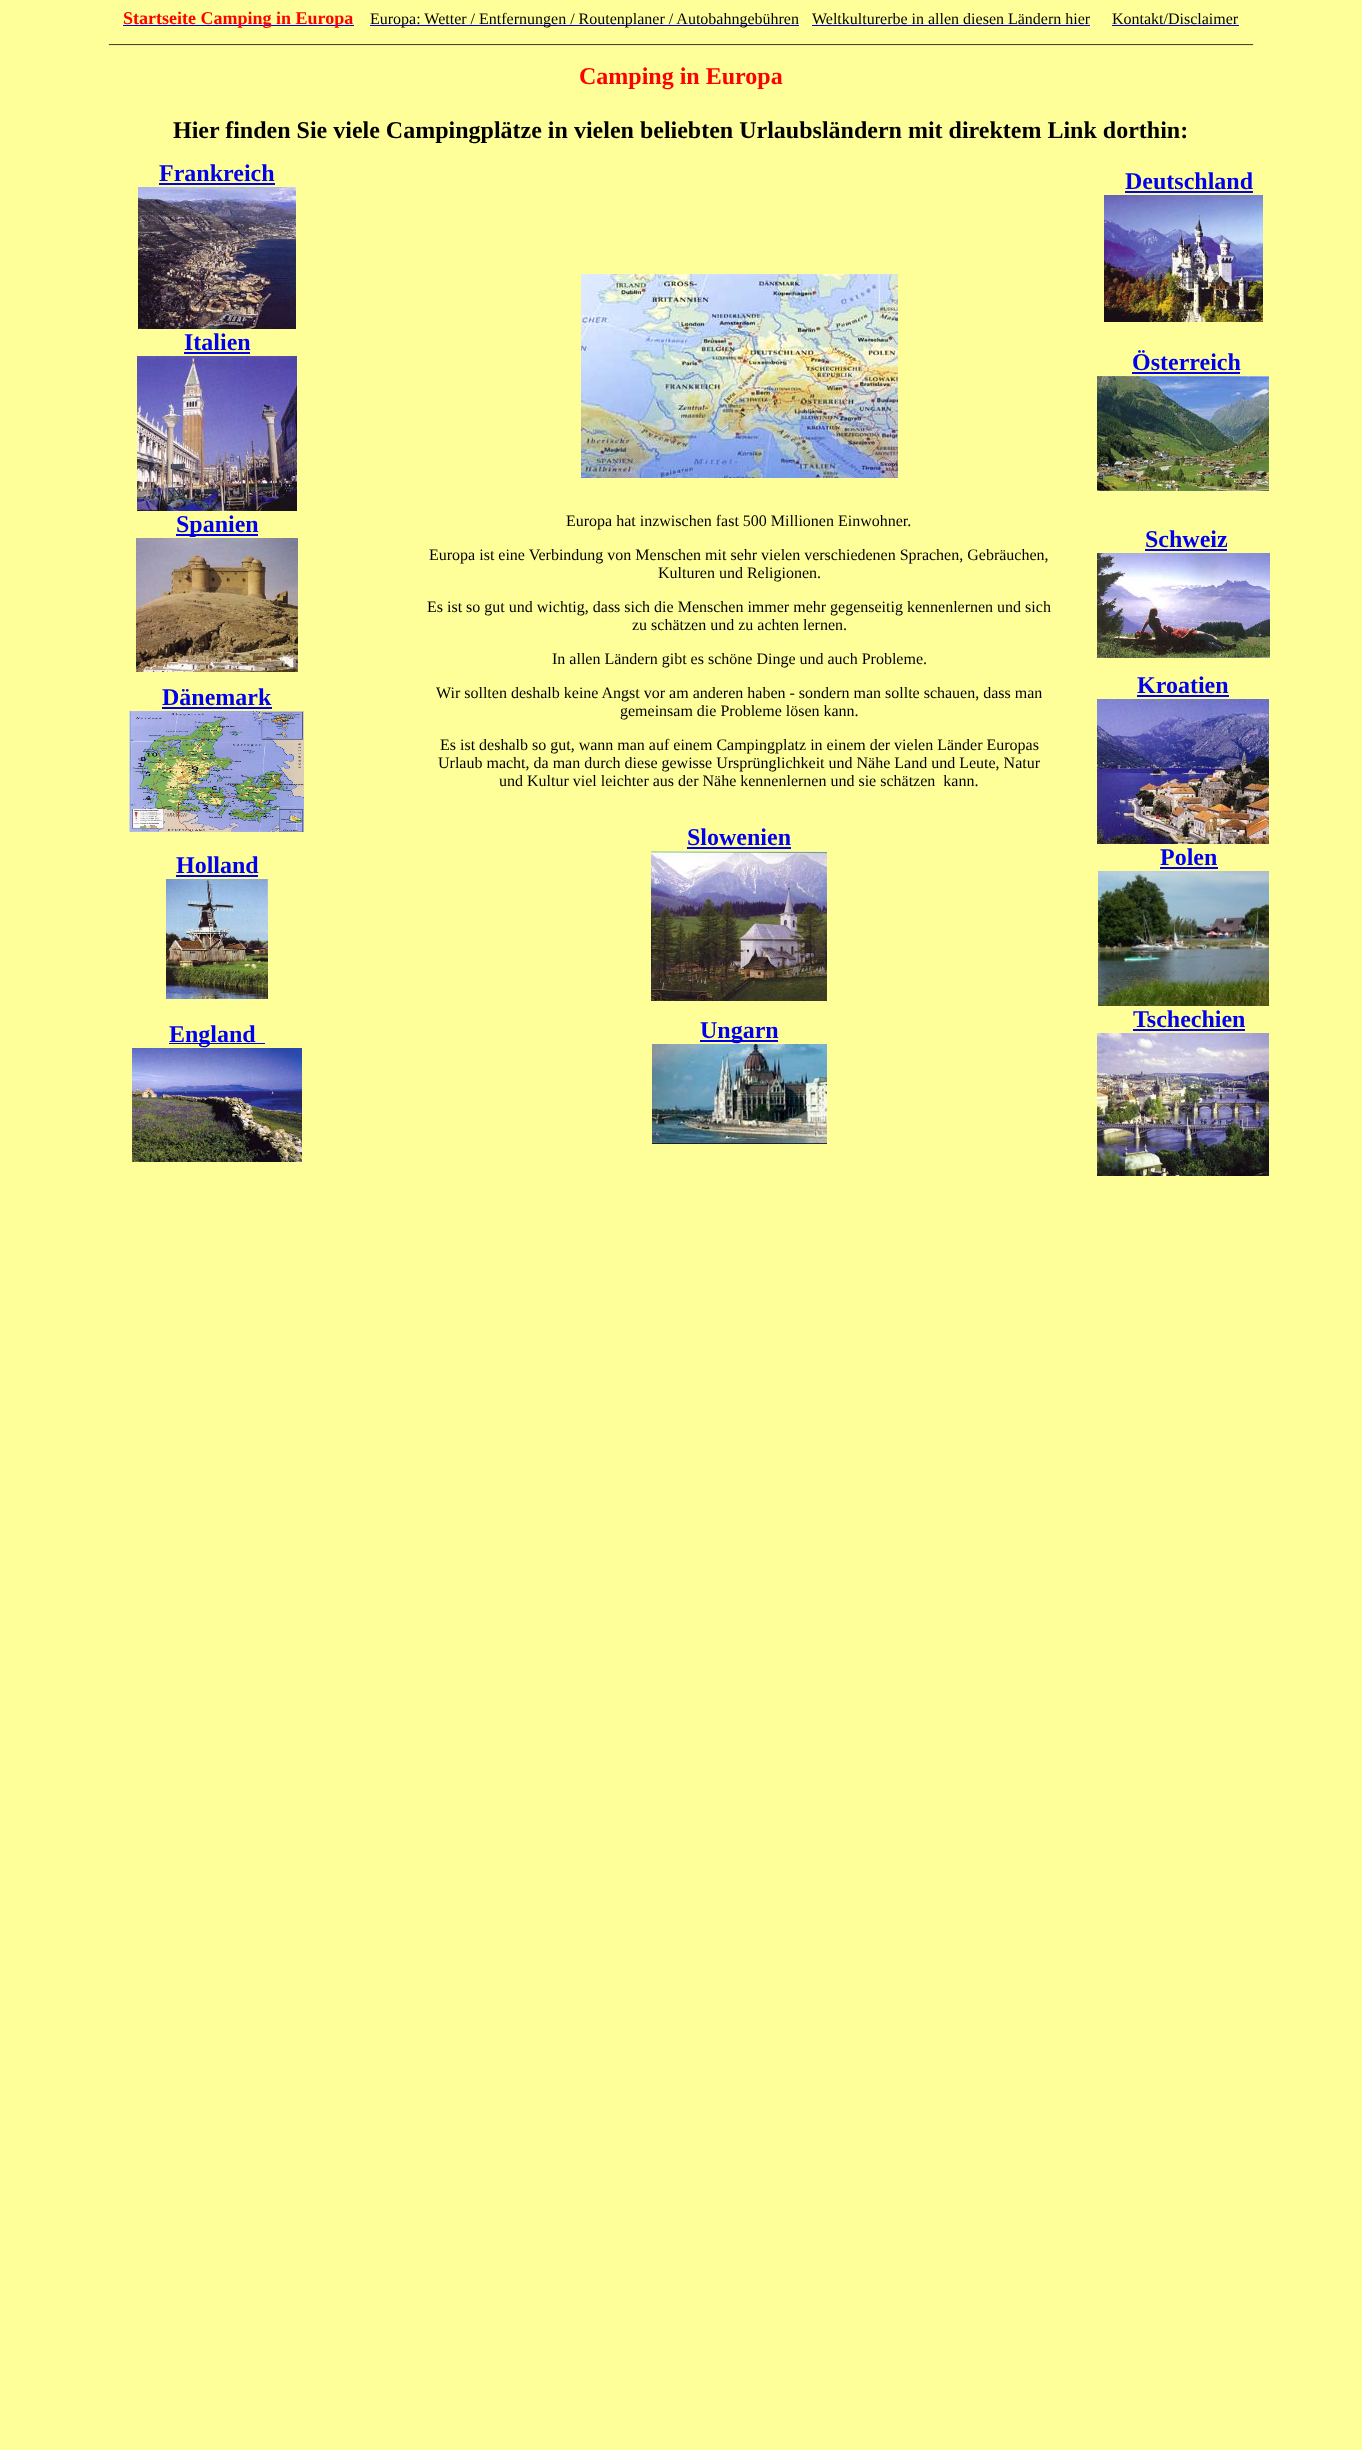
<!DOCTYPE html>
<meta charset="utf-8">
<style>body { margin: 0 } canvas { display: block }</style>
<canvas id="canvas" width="1362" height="2450"></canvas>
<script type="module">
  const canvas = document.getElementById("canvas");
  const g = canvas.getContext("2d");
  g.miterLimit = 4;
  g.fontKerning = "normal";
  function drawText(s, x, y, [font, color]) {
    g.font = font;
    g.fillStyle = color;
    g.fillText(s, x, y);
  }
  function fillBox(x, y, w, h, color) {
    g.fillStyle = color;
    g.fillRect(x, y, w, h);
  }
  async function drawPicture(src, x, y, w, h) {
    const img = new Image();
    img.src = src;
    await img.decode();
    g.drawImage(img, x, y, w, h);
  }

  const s1 = ["bold 18px Liberation Serif", "#FF0000"];
  const s2 = ["16px Liberation Serif", "#000000"];
  const s3 = ["bold 24px Liberation Serif", "#FF0000"];
  const s4 = ["bold 24px Liberation Serif", "#000000"];
  const s5 = ["bold 24px Liberation Serif", "#0000EE"];

  fillBox(0, 0, 1362, 2450, "#FFFF99");
  fillBox(123, 25, 231, 1, "#0000EE");
  drawText("Startseite Camping in Europa", 123, 24, s1);
  fillBox(370, 25, 429, 1, "#0000EE");
  drawText("Europa: Wetter / Entfernungen / Routenplaner / Autobahngebühren", 370, 24, s2);
  drawText("Weltkulturerbe in allen diesen Ländern hier", 812, 24, s2);
  fillBox(812, 25, 278, 1, "#0000EE");
  drawText("Kontakt/Disclaimer", 1112, 24, s2);
  fillBox(1112, 25, 127, 1, "#0000EE");
  drawText("_______________________________________________________________________________________________________________________________________________", 109, 43, s2);
  drawText("Camping in Europa", 579, 84, s3);
  drawText("Hier finden Sie viele Campingplätze in vielen beliebten Urlaubsländern mit direktem Link dorthin:", 173, 138, s4);
  drawText("Frankreich", 159, 181, s5);
  fillBox(159, 183, 116, 2, "#0000EE");
  await drawPicture("pic1.png", 138, 187, 158, 142);
  drawText("Deutschland", 1125, 189, s5);
  fillBox(1125, 191, 128, 2, "#0000EE");
  await drawPicture("pic2.png", 1104, 195, 159, 127);
  await drawPicture("pic3.png", 581, 274, 317, 204);
  drawText("Europa hat inzwischen fast 500 Millionen Einwohner.", 566, 526, s2);
  drawText("Europa ist eine Verbindung von Menschen mit sehr vielen verschiedenen Sprachen, Gebräuchen,", 429, 560, s2);
  drawText("Kulturen und Religionen.", 658, 578, s2);
  drawText("Es ist so gut und wichtig, dass sich die Menschen immer mehr gegenseitig kennenlernen und sich", 427, 612, s2);
  drawText("zu schätzen und zu achten lernen.", 632, 630, s2);
  drawText("In allen Ländern gibt es schöne Dinge und auch Probleme.", 552, 664, s2);
  drawText("Wir sollten deshalb keine Angst vor am anderen haben - sondern man sollte schauen, dass man", 436, 698, s2);
  drawText("gemeinsam die Probleme lösen kann.", 620, 716, s2);
  drawText("Es ist deshalb so gut, wann man auf einem Campingplatz in einem der vielen Länder Europas", 440, 750, s2);
  drawText("Urlaub macht, da man durch diese gewisse Ursprünglichkeit und Nähe Land und Leute, Natur", 438, 768, s2);
  drawText("und Kultur viel leichter aus der Nähe kennenlernen und sie schätzen  kann.", 499, 786, s2);
  drawText("Slowenien", 687, 845, s5);
  fillBox(687, 847, 104, 2, "#0000EE");
  await drawPicture("pic4.png", 651, 851, 176, 150);
  fillBox(700, 1040, 78, 2, "#0000EE");
  drawText("Ungarn", 700, 1038, s5);
  await drawPicture("pic5.png", 652, 1044, 175, 100);
  drawText("Italien", 184, 350, s5);
  fillBox(184, 352, 66, 2, "#0000EE");
  await drawPicture("pic6.png", 137, 356, 160, 155);
  drawText("Österreich", 1132, 370, s5);
  fillBox(1132, 372, 108, 2, "#0000EE");
  await drawPicture("pic7.png", 1097, 376, 172, 115);
  fillBox(176, 534, 82, 2, "#0000EE");
  drawText("Spanien", 176, 532, s5);
  await drawPicture("pic8.png", 136, 538, 162, 134);
  drawText("Schweiz", 1145, 547, s5);
  fillBox(1145, 549, 82, 2, "#0000EE");
  await drawPicture("pic9.png", 1097, 553, 173, 105);
  drawText("Kroatien", 1137, 693, s5);
  fillBox(1137, 695, 92, 2, "#0000EE");
  await drawPicture("pic10.png", 1097, 699, 172, 145);
  drawText("Dänemark", 162, 705, s5);
  fillBox(162, 707, 110, 2, "#0000EE");
  await drawPicture("pic11.png", 129, 711, 175, 121);
  drawText("Holland", 176, 873, s5);
  fillBox(176, 875, 82, 2, "#0000EE");
  await drawPicture("pic12.png", 166, 879, 102, 120);
  drawText("Polen", 1160, 865, s5);
  fillBox(1160, 867, 58, 2, "#0000EE");
  await drawPicture("pic13.png", 1098, 871, 171, 135);
  drawText("Tschechien", 1133, 1027, s5);
  fillBox(1133, 1029, 112, 2, "#0000EE");
  await drawPicture("pic14.png", 1097, 1033, 172, 143);
  fillBox(169, 1043, 96, 1, "#0000EE");
  drawText("England", 169, 1042, s5);
  await drawPicture("pic15.png", 132, 1048, 170, 114);
</script>
